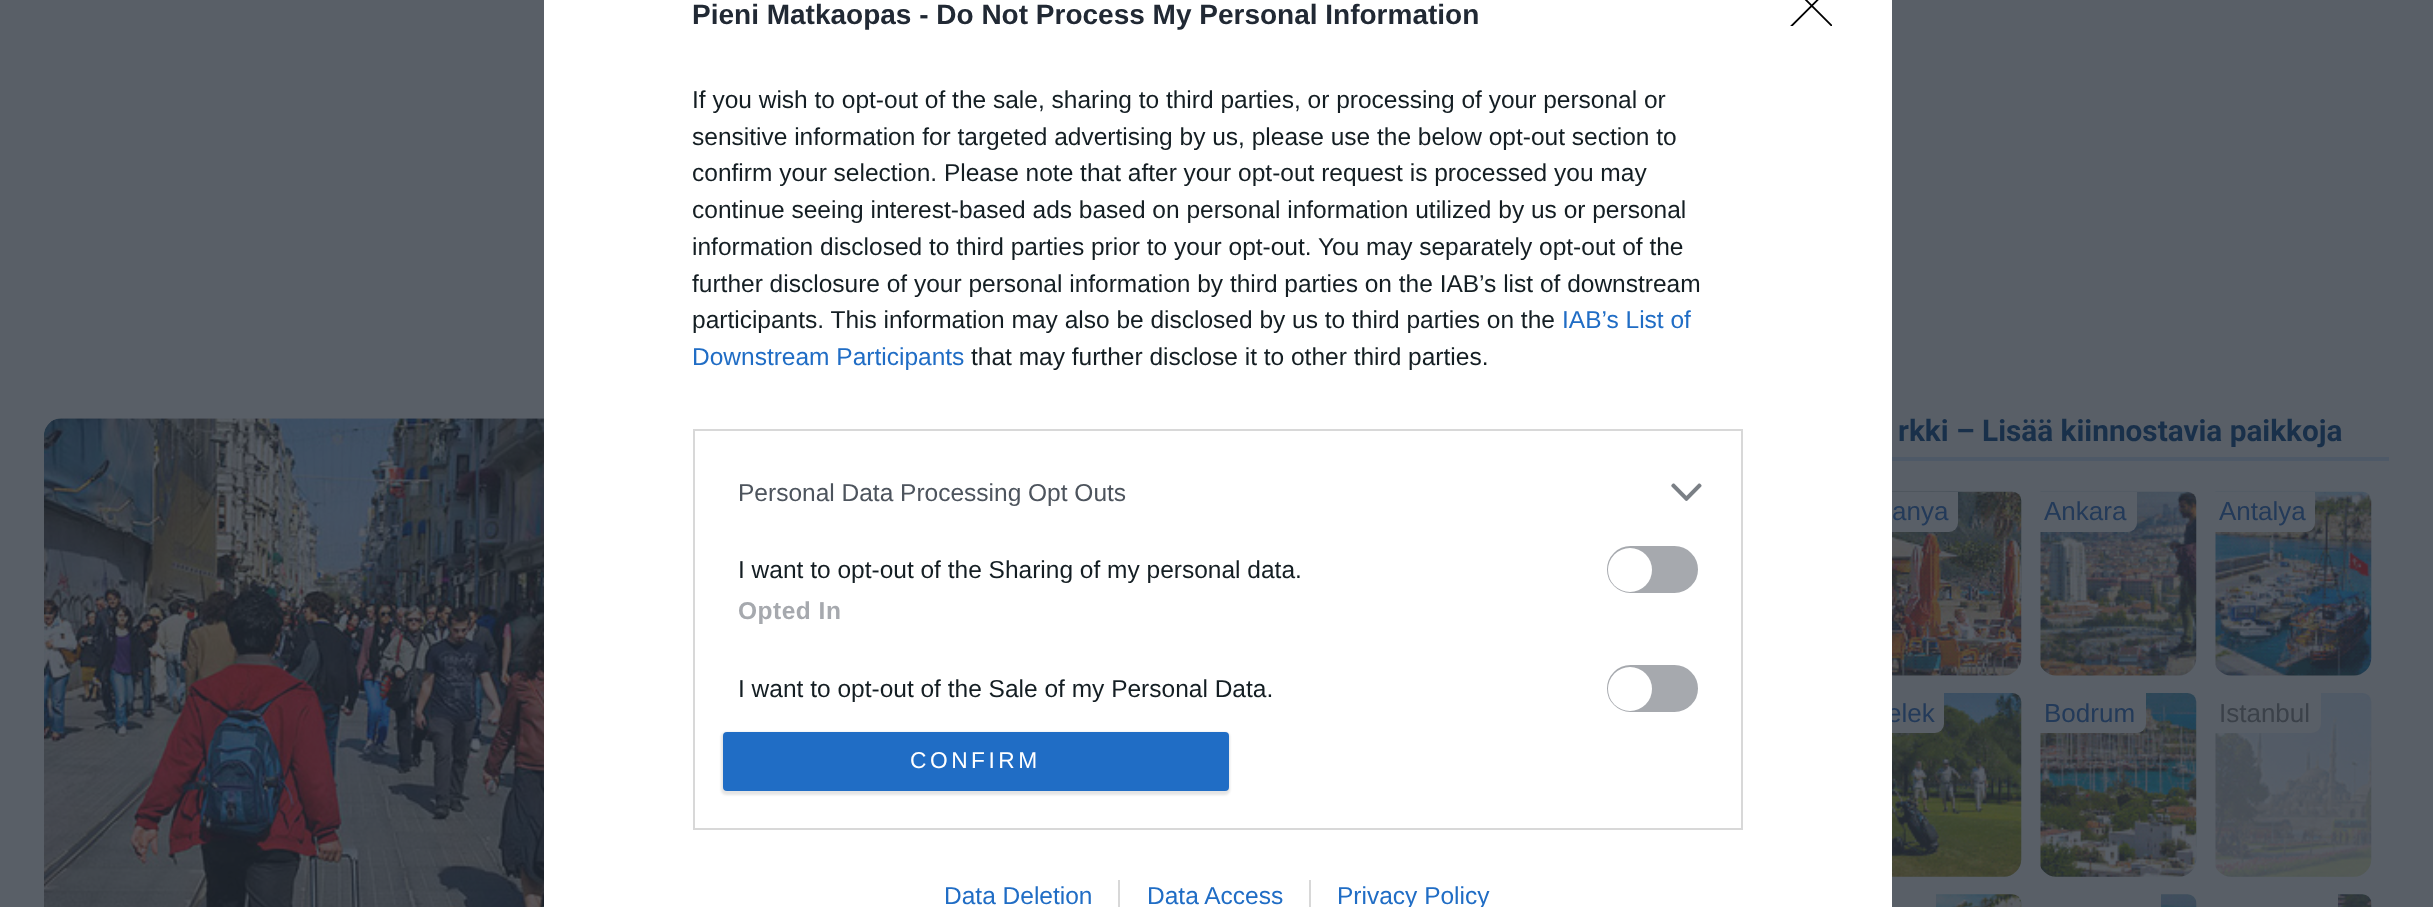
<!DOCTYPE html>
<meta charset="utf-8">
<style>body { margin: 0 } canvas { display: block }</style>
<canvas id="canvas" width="2433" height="907"></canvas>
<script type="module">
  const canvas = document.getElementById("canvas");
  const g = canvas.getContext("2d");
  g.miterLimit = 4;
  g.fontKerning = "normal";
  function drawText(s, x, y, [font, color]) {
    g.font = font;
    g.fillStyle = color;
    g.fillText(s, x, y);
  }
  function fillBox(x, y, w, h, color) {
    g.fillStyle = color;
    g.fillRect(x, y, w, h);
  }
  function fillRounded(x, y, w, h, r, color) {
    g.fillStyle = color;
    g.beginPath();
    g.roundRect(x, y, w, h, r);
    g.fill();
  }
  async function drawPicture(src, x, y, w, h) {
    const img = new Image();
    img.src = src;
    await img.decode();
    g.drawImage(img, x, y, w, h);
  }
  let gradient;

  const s1 = ["26px Liberation Sans", "#233A59"];
  const s2 = ["bold 28px Liberation Sans", "#212934"];
  const s3 = ["24.5px Liberation Sans", "#141E23"];
  const s4 = ["24.5px Liberation Sans", "#206DC5"];
  const s5 = ["24.5px Liberation Sans", "#4D545D"];
  const s6 = ["bold 24.5px Liberation Sans", "#A6A9AE"];
  const s7 = ["22.75px Liberation Sans", "#FFFFFF"];
  const s8 = ["bold 29.75px Roboto", "#19304A"];
  const s9 = ["26px Liberation Sans", "#3B4149"];

  fillBox(0, 0, 2433, 907, "#595F67");
  gradient = g.createLinearGradient(0, -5.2, 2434, -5.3);
  gradient.addColorStop(0, "#595F67");
  gradient.addColorStop(0.2, "#575D65");
  gradient.addColorStop(0.49, "#555B63");
  gradient.addColorStop(0.8, "#575D65");
  gradient.addColorStop(1, "#595F67");
  g.fillStyle = gradient;
  g.fillRect(663, 0, 1096, 362);
  await drawPicture("pic3.png", 1892, 491, 130, 185);
  g.fillStyle = "#595F67";
  g.beginPath();
  g.roundRect(1864, 492, 94, 40, [0, 0, 9, 0]);
  g.fill();
  await drawPicture("pic6.png", 1892, 693, 130, 184);
  g.beginPath();
  g.roundRect(1864, 693, 80, 40, [0, 0, 9, 0]);
  g.fill();
  drawText("elek", 1887, 722, s1);
  fillBox(544, 0, 1348, 907, "#FFFFFF");
  drawText("Pieni Matkaopas - Do Not Process My Personal Information", 692, 24, s2);
  drawText("If you wish to opt-out of the sale, sharing to third parties, or processing of your personal or", 692, 108, s3);
  drawText("sensitive information for targeted advertising by us, please use the below opt-out section to", 692, 145, s3);
  drawText("confirm your selection. Please note that after your opt-out request is processed you may", 692, 181, s3);
  drawText("continue seeing interest-based ads based on personal information utilized by us or personal", 692, 218, s3);
  drawText("information disclosed to third parties prior to your opt-out. You may separately opt-out of the", 692, 255, s3);
  drawText("further disclosure of your personal information by third parties on the IAB’s list of downstream", 692, 292, s3);
  drawText("participants. This information may also be disclosed by us to third parties on the", 692, 328, s3);
  drawText("IAB’s List of", 1562, 328, s4);
  drawText("Downstream Participants", 692, 365, s4);
  drawText("that may further disclose it to other third parties.", 971, 365, s3);
  g.strokeStyle = "#D8D8D8";
  g.lineWidth = 2;
  g.strokeRect(694, 430, 1048, 399);
  drawText("Personal Data Processing Opt Outs", 738, 501, s5);
  await drawPicture("pic1.png", 1671, 483, 31, 18);
  drawText("I want to opt-out of the Sharing of my personal data.", 738, 578, s3);
  g.fillStyle = "#A6A9AE";
  g.beginPath();
  g.roundRect(1608, 547, 89, 45, 22.5);
  g.fill();
  g.strokeStyle = "#A6A9AE";
  g.stroke();
  g.fillStyle = "#FFFFFF";
  g.beginPath();
  g.arc(1630, 570, 22, 0, Math.PI * 2);
  g.fill();
  g.letterSpacing = "0.5px";
  drawText("Opted In", 738, 619, s6);
  g.letterSpacing = "0px";
  drawText("I want to opt-out of the Sale of my Personal Data.", 738, 697, s3);
  g.fillStyle = "#A6A9AE";
  g.beginPath();
  g.roundRect(1608, 666, 89, 45, 22.5);
  g.fill();
  g.stroke();
  g.fillStyle = "#FFFFFF";
  g.beginPath();
  g.arc(1630, 689, 22, 0, Math.PI * 2);
  g.fill();
  g.fillStyle = "rgba(0, 0, 0, 0.1)";
  g.filter = "blur(1px)";
  g.beginPath();
  g.roundRect(721, 732, 509, 63, 5);
  g.fill();
  g.filter = "none";
  fillRounded(723, 732, 506, 59, 4, "#206DC5");
  g.letterSpacing = "3.5px";
  drawText("CONFIRM", 910, 768, s7);
  g.save();
  g.beginPath();
  g.rect(1790, 0, 42, 26);
  g.clip();
  g.beginPath();
  g.moveTo(1791, -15);
  g.lineTo(1832.5, 26.5);
  g.moveTo(1832.5, -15);
  g.lineTo(1791, 26.5);
  g.strokeStyle = "#000000";
  g.lineWidth = 1.8;
  g.lineCap = "round";
  g.lineJoin = "round";
  g.stroke();
  g.restore();
  g.letterSpacing = "0px";
  drawText("Data Deletion", 944, 904, s4);
  drawText("Data Access", 1147, 904, s4);
  fillBox(1118, 880, 2, 27, "#D8D8D8");
  drawText("Privacy Policy", 1337, 904, s4);
  fillBox(1309, 880, 2, 27, "#D8D8D8");
  await drawPicture("pic2.png", 44, 418, 500, 489);
  fillBox(1892, 457, 497, 4, "#4E5967");
  drawText("rkki – Lisää kiinnostavia paikkoja", 1898, 441, s8);
  drawText("anya", 1892, 520, s1);
  await drawPicture("pic4.png", 2040, 491, 157, 185);
  g.fillStyle = "#595F67";
  g.beginPath();
  g.roundRect(2039, 492, 98, 40, [0, 0, 9, 0]);
  g.fill();
  drawText("Ankara", 2044, 520, s1);
  await drawPicture("pic5.png", 2215, 491, 157, 185);
  g.fillStyle = "#595F67";
  g.beginPath();
  g.roundRect(2214, 492, 101, 40, [0, 0, 9, 0]);
  g.fill();
  drawText("Antalya", 2219, 520, s1);
  await drawPicture("pic7.png", 2040, 693, 157, 184);
  g.fillStyle = "#595F67";
  g.beginPath();
  g.roundRect(2039, 693, 107, 40, [0, 0, 9, 0]);
  g.fill();
  drawText("Bodrum", 2044, 722, s1);
  await drawPicture("pic8.png", 2215, 693, 157, 184);
  g.fillStyle = "#595F67";
  g.beginPath();
  g.roundRect(2214, 693, 107, 40, [0, 0, 9, 0]);
  g.fill();
  drawText("Istanbul", 2219, 722, s9);
  await drawPicture("pic9.png", 1936, 894, 86, 13);
  await drawPicture("pic10.png", 2161, 894, 36, 13);
  await drawPicture("pic11.png", 2338, 894, 34, 13);
</script>
